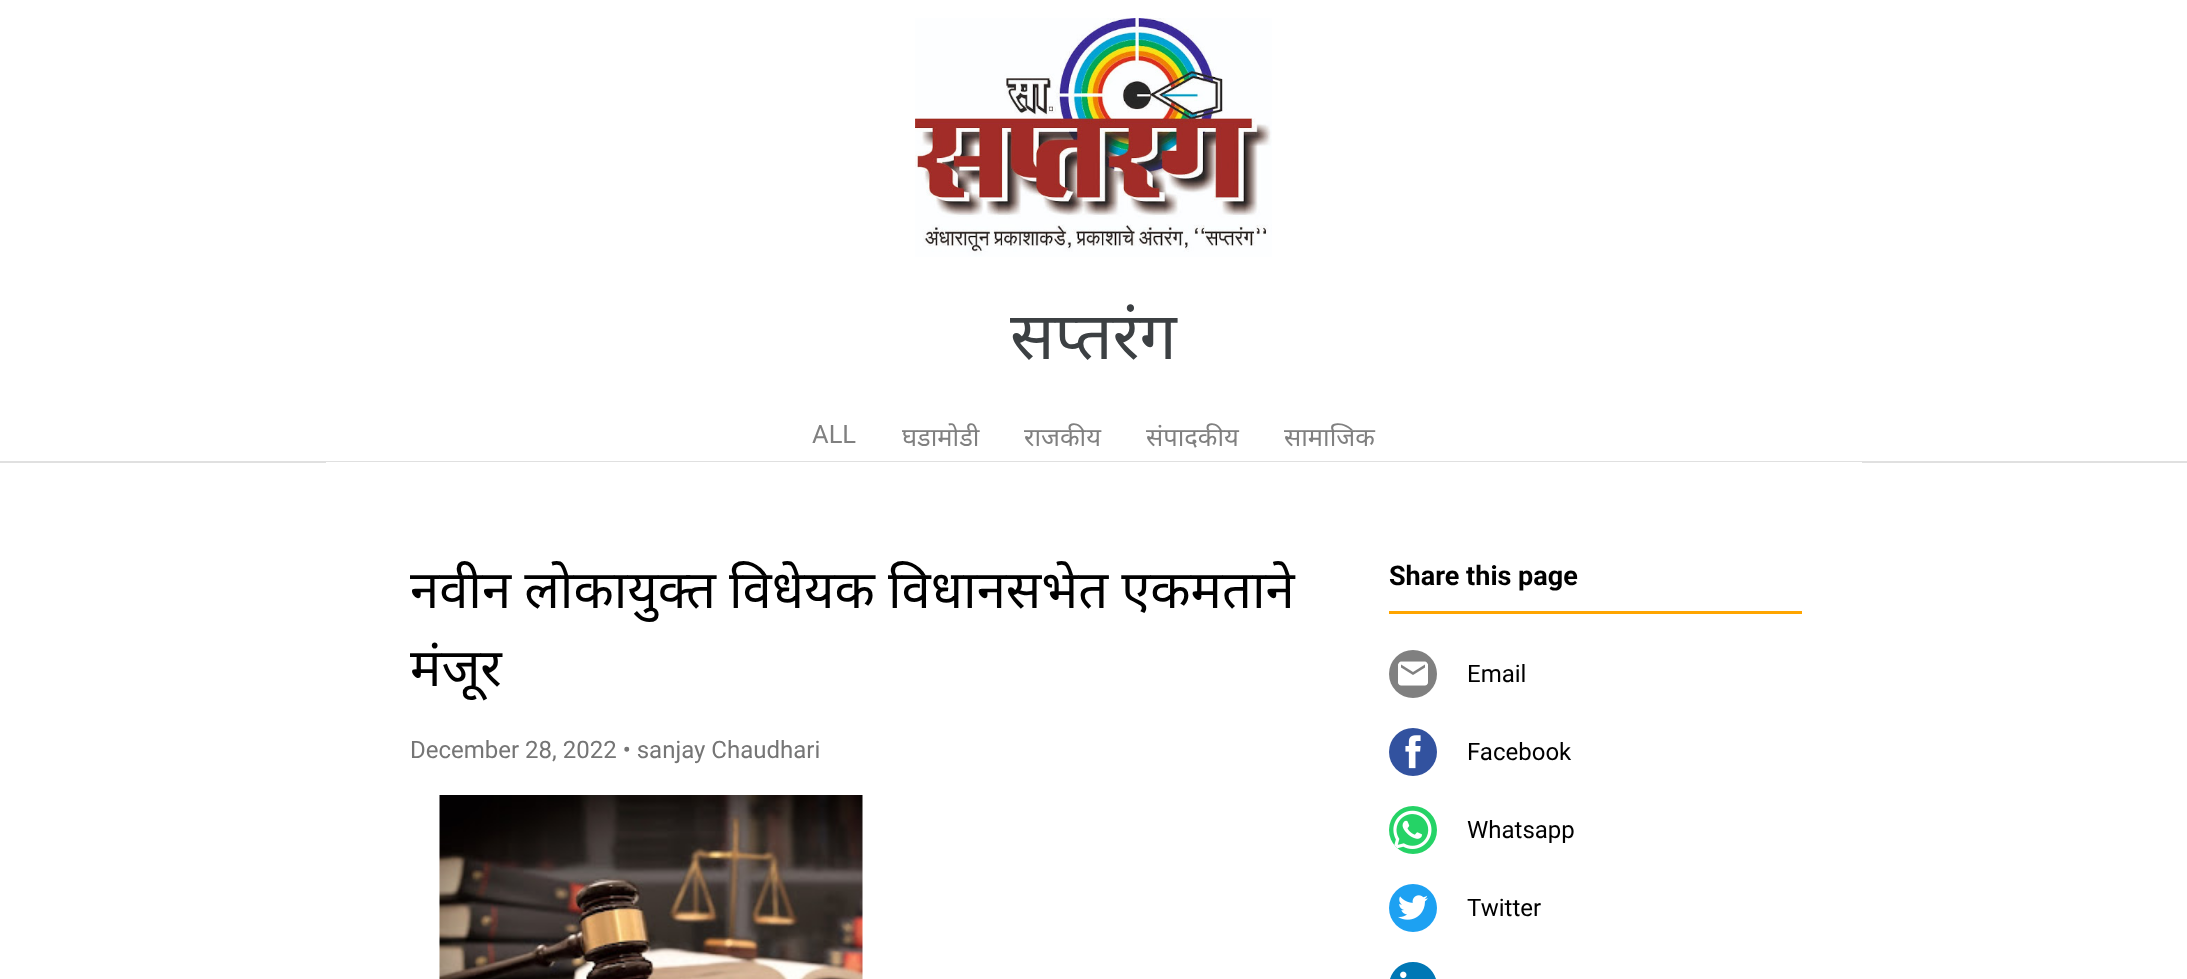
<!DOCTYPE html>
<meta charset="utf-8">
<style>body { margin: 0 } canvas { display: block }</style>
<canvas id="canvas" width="2187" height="979"></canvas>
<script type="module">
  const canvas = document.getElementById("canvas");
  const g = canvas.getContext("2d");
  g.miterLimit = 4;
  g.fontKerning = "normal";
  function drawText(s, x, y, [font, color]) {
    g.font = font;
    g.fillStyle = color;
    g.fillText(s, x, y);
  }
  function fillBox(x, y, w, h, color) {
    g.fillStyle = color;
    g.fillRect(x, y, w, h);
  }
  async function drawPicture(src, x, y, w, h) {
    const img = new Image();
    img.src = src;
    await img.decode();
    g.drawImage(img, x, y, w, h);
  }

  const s1 = ["66px Noto Sans", "#3C4043"];
  const s2 = ["25.5px Roboto", "#808080"];
  const s3 = ["25.5px Noto Sans", "#808080"];
  const s4 = ["52.5px Noto Sans", "#000000"];
  const s5 = ["24px Roboto", "#757575"];
  const s6 = ["bold 27px Roboto", "#000000"];
  const s7 = ["24px Roboto", "#000000"];

  fillBox(0, 0, 2187, 979, "#FFFFFF");
  fillBox(0, 461, 2187, 2, "#E0E0E0");
  await drawPicture("pic1.png", 915, 18, 357, 239);
  drawText("सप्तरंग", 1010, 359, s1);
  drawText("ALL", 812, 443, s2);
  drawText("घडामोडी", 902, 446, s3);
  drawText("राजकीय", 1024, 446, s3);
  drawText("संपादकीय", 1146, 446, s3);
  drawText("सामाजिक", 1284, 446, s3);
  fillBox(326, 462, 1536, 1, "#FFFFFF");
  g.save();
  g.beginPath();
  g.rect(410, 552, 889, 158);
  g.clip();
  g.wordSpacing = "-0.5px";
  drawText("नवीन लोकायुक्त विधेयक विधानसभेत एकमताने", 410, 608, s4);
  g.wordSpacing = "0px";
  drawText("मंजूर", 410, 686, s4);
  g.restore();
  drawText("December 28, 2022 • sanjay Chaudhari", 410, 758, s5);
  await drawPicture("pic2.png", 439, 795, 424, 184);
  fillBox(1389, 611, 413, 3, "#FFA500");
  drawText("Share this page", 1389, 585, s6);
  g.fillStyle = "#808080";
  g.beginPath();
  g.arc(1413, 674, 24, 0, Math.PI * 2);
  g.fill();
  await drawPicture("pic3.png", 1398, 661, 30, 25);
  drawText("Email", 1467, 682, s7);
  g.fillStyle = "#32529F";
  g.beginPath();
  g.arc(1413, 752, 24, 0, Math.PI * 2);
  g.fill();
  await drawPicture("pic4.png", 1405, 735, 16, 34);
  drawText("Facebook", 1467, 760, s7);
  g.fillStyle = "#25D366";
  g.beginPath();
  g.arc(1413, 830, 24, 0, Math.PI * 2);
  g.fill();
  await drawPicture("pic5.png", 1393, 810, 39, 39);
  drawText("Whatsapp", 1467, 838, s7);
  g.fillStyle = "#1DA1F2";
  g.beginPath();
  g.arc(1413, 908, 24, 0, Math.PI * 2);
  g.fill();
  await drawPicture("pic6.png", 1398, 895, 30, 25);
  drawText("Twitter", 1467, 916, s7);
  g.fillStyle = "#0077B5";
  g.beginPath();
  g.moveTo(1413, 962);
  g.bezierCurveTo(1426.5, 962, 1437, 972.5, 1437, 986);
  g.lineTo(1437, 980);
  g.lineTo(1389, 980);
  g.lineTo(1389, 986);
  g.bezierCurveTo(1389, 972.5, 1399.5, 962, 1413, 962);
  g.closePath();
  g.fill();
  await drawPicture("pic7.png", 1400, 971, 7, 8);
</script>
